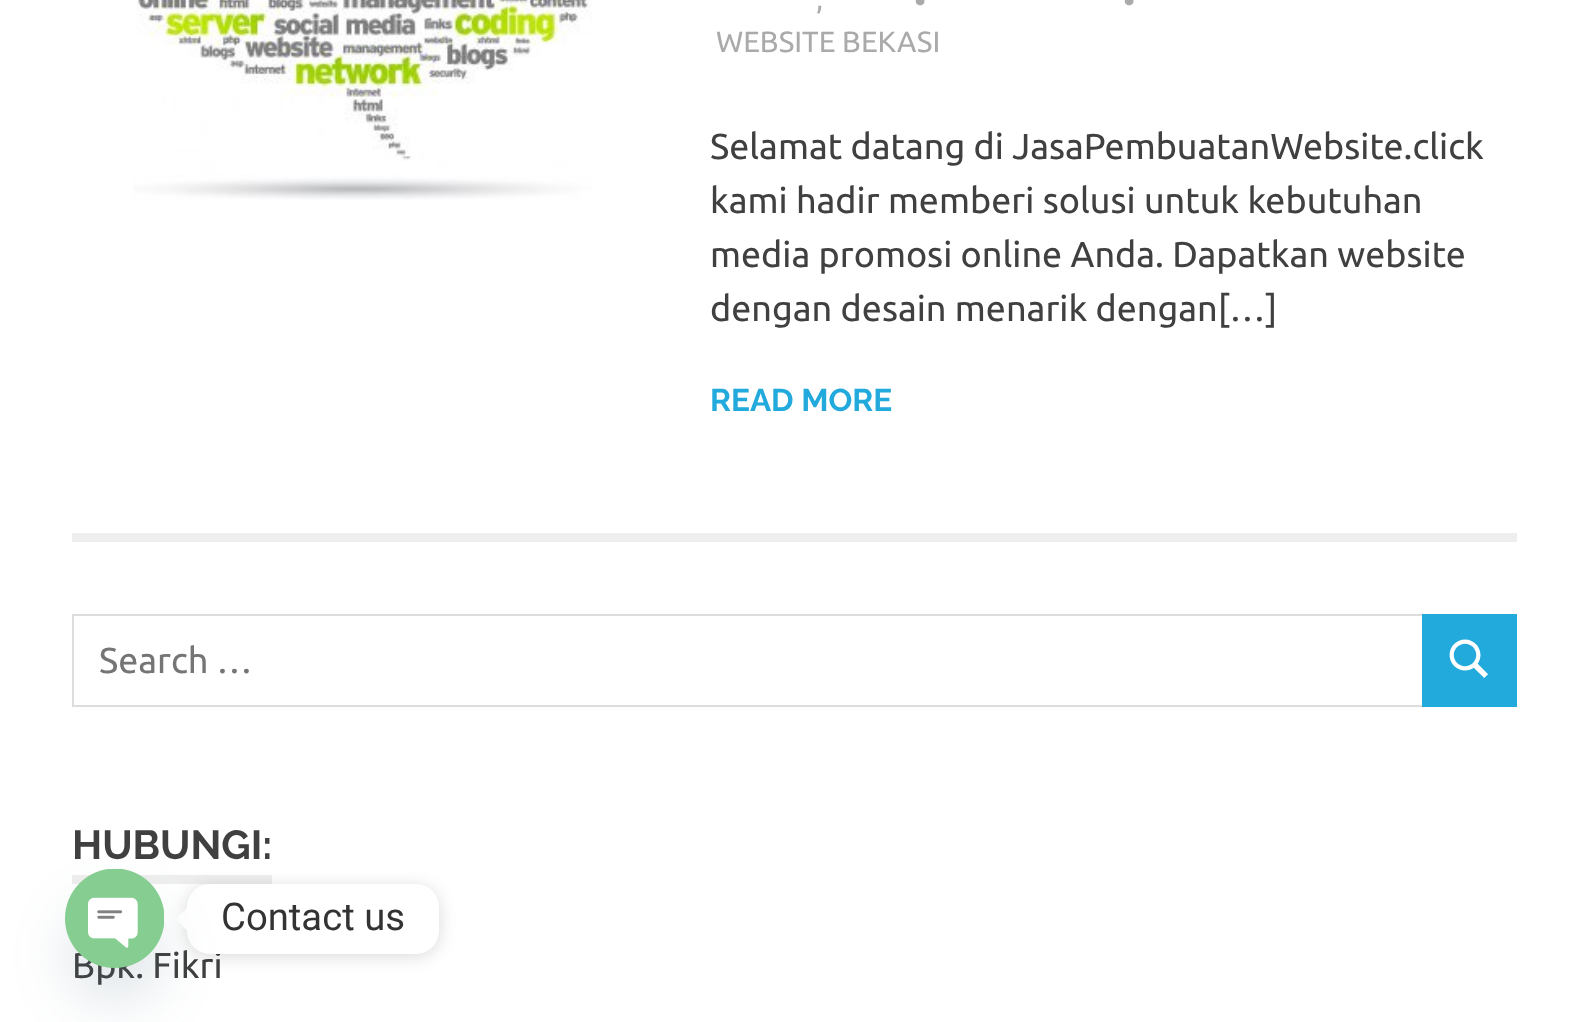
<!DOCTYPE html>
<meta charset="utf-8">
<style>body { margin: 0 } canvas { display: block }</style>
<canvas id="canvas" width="1587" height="1022"></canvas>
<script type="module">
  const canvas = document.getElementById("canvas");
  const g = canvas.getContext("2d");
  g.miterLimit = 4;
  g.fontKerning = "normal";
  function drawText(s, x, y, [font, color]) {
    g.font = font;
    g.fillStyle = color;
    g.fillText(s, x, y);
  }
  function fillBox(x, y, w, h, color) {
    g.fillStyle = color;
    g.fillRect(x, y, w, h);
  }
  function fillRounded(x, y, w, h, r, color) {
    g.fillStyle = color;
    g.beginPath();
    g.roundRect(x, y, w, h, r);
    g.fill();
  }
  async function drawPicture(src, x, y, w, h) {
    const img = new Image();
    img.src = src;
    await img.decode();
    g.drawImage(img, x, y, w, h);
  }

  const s1 = ["34px Ubuntu", "#AAAAAA"];
  const s2 = ["29.25px Ubuntu", "#AAAAAA"];
  const s3 = ["36px Ubuntu", "#404040"];
  const s4 = ["bold 31.5px Raleway", "#22AADD"];
  const s5 = ["36px Ubuntu", "#757575"];
  const s6 = ["bold 40.5px Raleway", "#404040"];
  const s7 = ["38.25px Roboto", "#333333"];

  fillBox(0, 0, 1587, 1022, "#FFFFFF");
  await drawPicture("pic1.png", 133, 0, 459, 200);
  drawText("•", 914, 13, s1);
  drawText(",", 816, 9, s2);
  drawText("•", 1123, 13, s1);
  drawText("WEBSITE BEKASI", 716, 52, s2);
  drawText("Selamat datang di JasaPembuatanWebsite.click", 710, 159, s3);
  drawText("kami hadir memberi solusi untuk kebutuhan", 710, 213, s3);
  drawText("media promosi online Anda. Dapatkan website", 710, 267, s3);
  drawText("dengan desain menarik dengan[…]", 710, 321, s3);
  drawText("READ MORE", 710, 411, s4);
  fillBox(72, 533, 1445, 9, "#EEEEEE");
  g.strokeStyle = "#DDDDDD";
  g.lineWidth = 2;
  g.strokeRect(73, 615, 1350, 91);
  drawText("Search …", 99, 673, s5);
  fillBox(1422, 614, 95, 93, "#22AADD");
  await drawPicture("pic2.png", 1449, 639, 39, 39);
  fillBox(72, 875, 200, 9, "#EEEEEE");
  drawText("HUBUNGI:", 72, 859, s6);
  drawText("Bpk. Fikri", 72, 978, s3);
  g.fillStyle = "rgba(0, 0, 0, 0.15)";
  g.filter = "blur(8.5px)";
  g.beginPath();
  g.roundRect(187, 887, 252, 69, 23);
  g.fill();
  g.filter = "none";
  fillRounded(187, 884, 252, 70, 23, "#FFFFFF");
  g.beginPath();
  g.moveTo(187, 908);
  g.lineTo(187, 930.5);
  g.lineTo(175.5, 919);
  g.closePath();
  g.fill();
  g.fillStyle = "rgba(73, 104, 126, 0.16)";
  g.filter = "blur(27px)";
  g.beginPath();
  g.roundRect(65, 905, 99, 99, 49.5);
  g.fill();
  g.filter = "none";
  g.fillStyle = "#86CD91";
  g.beginPath();
  g.arc(114.5, 918.5, 49.5, 0, Math.PI * 2);
  g.fill();
  await drawPicture("pic3.png", 67, 869, 97, 96);
  drawText("Contact us", 221, 930, s7);
</script>
